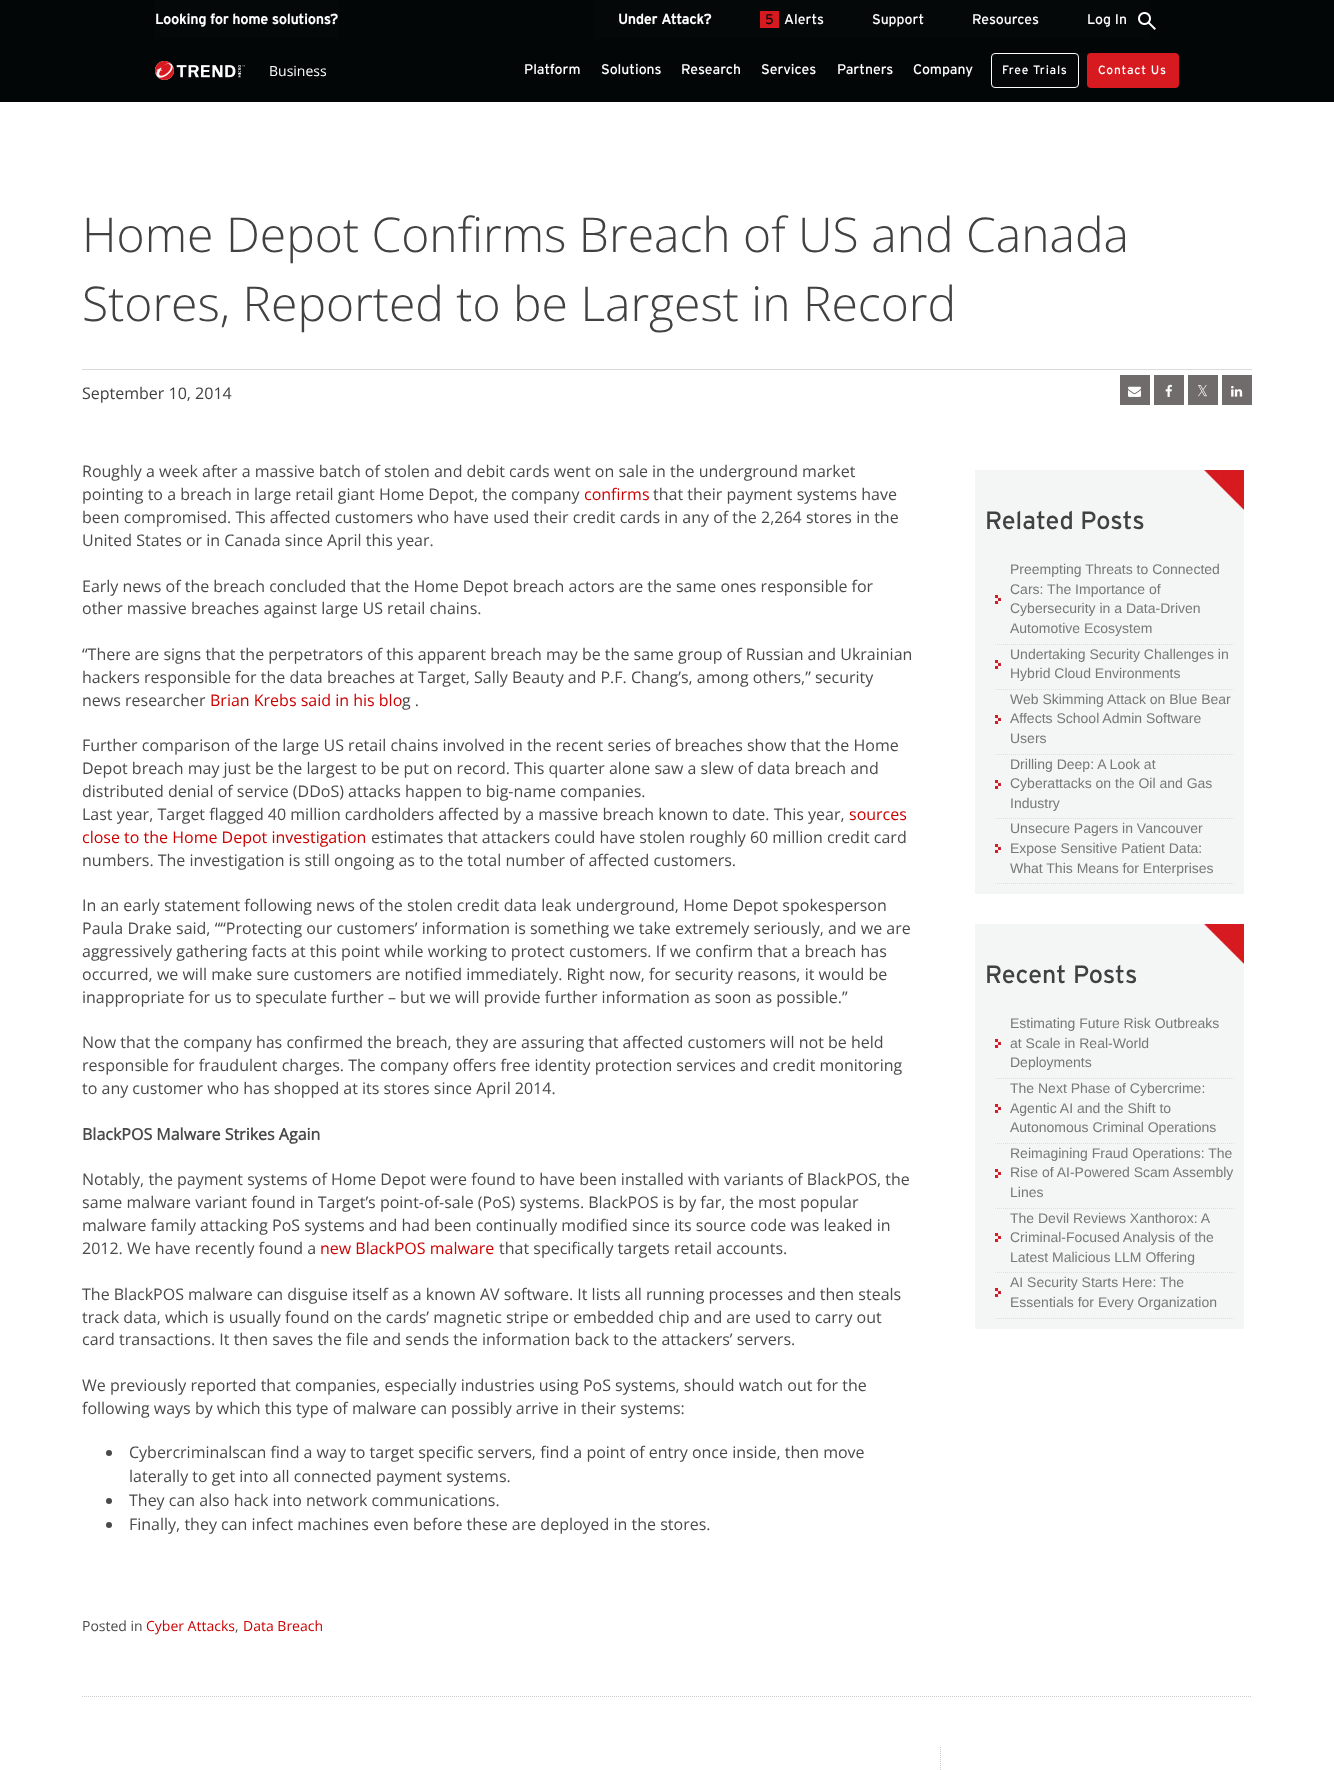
<!DOCTYPE html>
<meta charset="utf-8">
<style>body { margin: 0 } canvas { display: block }</style>
<canvas id="canvas" width="1334" height="1770"></canvas>
<script type="module">
  const canvas = document.getElementById("canvas");
  const g = canvas.getContext("2d");
  g.miterLimit = 4;
  g.fontKerning = "normal";
  function drawText(s, x, y, [font, color]) {
    g.font = font;
    g.fillStyle = color;
    g.fillText(s, x, y);
  }
  function fillBox(x, y, w, h, color) {
    g.fillStyle = color;
    g.fillRect(x, y, w, h);
  }
  function fillRounded(x, y, w, h, r, color) {
    g.fillStyle = color;
    g.beginPath();
    g.roundRect(x, y, w, h, r);
    g.fill();
  }
  async function drawPicture(src, x, y, w, h) {
    const img = new Image();
    img.src = src;
    await img.decode();
    g.drawImage(img, x, y, w, h);
  }

  const s1 = ["bold 14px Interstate", "#FFFFFF"];
  const s2 = ["14px Interstate", "#050809"];
  const s3 = ["14px Interstate", "#FFFFFF"];
  const s4 = ["12px Interstate", "#FFFFFF"];
  const s5 = ["14px Open Sans", "#FFFFFF"];
  const s6 = ["300 48px Open Sans", "#414042"];
  const s7 = ["16px Open Sans", "#414042"];
  const s8 = ["16px Open Sans", "#4A4A4A"];
  const s9 = ["16px Open Sans", "#CC0000"];
  const s10 = ["bold 16px Open Sans", "#4A4A4A"];
  const s11 = ["14px Open Sans", "#4A4A4A"];
  const s12 = ["14px Open Sans", "#CC0000"];
  const s13 = ["25px Interstate", "#414042"];
  const s14 = ["14px Liberation Sans", "#777777"];

  fillBox(0, 0, 1334, 1770, "#FFFFFF");
  fillBox(0, 0, 1334, 102, "#020607");
  fillBox(155, 0, 183, 39, "#050809");
  drawText("Looking for home solutions?", 155, 24, s1);
  fillBox(594, 0, 557, 39, "#050809");
  drawText("Under Attack?", 618, 24, s1);
  fillBox(760, 11, 19, 17, "#D71920");
  drawText("5", 765, 24, s2);
  drawText("Alerts", 784, 24, s3);
  drawText("Support", 872, 24, s3);
  drawText("Resources", 972, 24, s3);
  drawText("Log In", 1087, 24, s3);
  drawText("Platform", 524, 74, s3);
  drawText("Solutions", 601, 74, s3);
  drawText("Research", 681, 74, s3);
  drawText("Services", 761, 74, s3);
  drawText("Partners", 837, 74, s3);
  drawText("Company", 913, 74, s3);
  fillBox(991, 53, 188, 35, "#050809");
  g.beginPath();
  g.roundRect(991.5, 53.5, 87, 34, 3.5);
  g.strokeStyle = "#FFFFFF";
  g.stroke();
  g.letterSpacing = "0.75px";
  drawText("Free Trials", 1002, 74, s4);
  fillRounded(1087, 53, 92, 35, 4, "#D71920");
  drawText("Contact Us", 1098, 74, s4);
  await drawPicture("pic1.png", 1138, 12, 18, 18);
  await drawPicture("pic2.png", 155, 61, 90, 19);
  g.letterSpacing = "0px";
  drawText("Business", 269, 76, s5);
  drawText("Home Depot Confirms Breach of US and Canada", 82, 252, s6);
  drawText("Stores, Reported to be Largest in Record", 82, 321, s6);
  fillBox(82, 369, 1170, 1, "#DADADA");
  drawText("September 10, 2014", 82, 399, s7);
  fillBox(1120, 375, 30, 30, "#716C6C");
  await drawPicture("pic3.png", 1128, 386, 13, 11);
  fillBox(1154, 375, 30, 30, "#716C6C");
  await drawPicture("pic4.png", 1165, 384, 7, 13);
  fillBox(1188, 375, 30, 30, "#716C6C");
  await drawPicture("pic5.png", 1198, 385, 9, 12);
  fillBox(1222, 375, 30, 30, "#716C6C");
  await drawPicture("pic6.png", 1231, 385, 12, 12);
  drawText("Roughly a week after a massive batch of stolen and debit cards went on sale in the underground market", 82, 477, s8);
  drawText("pointing to a breach in large retail giant Home Depot, the company", 82, 500, s8);
  drawText("confirms", 584, 500, s9);
  drawText("that their payment systems have", 653, 500, s8);
  drawText("been compromised. This affected customers who have used their credit cards in any of the 2,264 stores in the", 82, 523, s8);
  drawText("United States or in Canada since April this year.", 82, 546, s8);
  drawText("Early news of the breach concluded that the Home Depot breach actors are the same ones responsible for", 82, 592, s8);
  drawText("other massive breaches against large US retail chains.", 82, 614, s8);
  drawText("“There are signs that the perpetrators of this apparent breach may be the same group of Russian and Ukrainian", 82, 660, s8);
  drawText("hackers responsible for the data breaches at Target, Sally Beauty and P.F. Chang’s, among others,” security", 82, 683, s8);
  drawText("news researcher", 82, 706, s8);
  drawText("Brian Krebs said in his blo", 210, 706, s9);
  drawText("g .", 402, 706, s8);
  drawText("Further comparison of the large US retail chains involved in the recent series of breaches show that the Home", 82, 751, s8);
  drawText("Depot breach may just be the largest to be put on record. This quarter alone saw a slew of data breach and", 82, 774, s8);
  drawText("distributed denial of service (DDoS) attacks happen to big-name companies.", 82, 797, s8);
  drawText("Last year, Target flagged 40 million cardholders affected by a massive breach known to date. This year,", 82, 820, s8);
  drawText("sources", 849, 820, s9);
  drawText("close to the Home Depot investigation", 82, 843, s9);
  drawText("estimates that attackers could have stolen roughly 60 million credit card", 371, 843, s8);
  drawText("numbers. The investigation is still ongoing as to the total number of affected customers.", 82, 866, s8);
  drawText("In an early statement following news of the stolen credit data leak underground, Home Depot spokesperson", 82, 911, s8);
  drawText("Paula Drake said, ““Protecting our customers’ information is something we take extremely seriously, and we are", 82, 934, s8);
  drawText("aggressively gathering facts at this point while working to protect customers. If we confirm that a breach has", 82, 957, s8);
  drawText("occurred, we will make sure customers are notified immediately. Right now, for security reasons, it would be", 82, 980, s8);
  drawText("inappropriate for us to speculate further – but we will provide further information as soon as possible.”", 82, 1003, s8);
  drawText("Now that the company has confirmed the breach, they are assuring that affected customers will not be held", 82, 1048, s8);
  drawText("responsible for fraudulent charges. The company offers free identity protection services and credit monitoring", 82, 1071, s8);
  drawText("to any customer who has shopped at its stores since April 2014.", 82, 1094, s8);
  drawText("BlackPOS Malware Strikes Again", 82, 1140, s10);
  drawText("Notably, the payment systems of Home Depot were found to have been installed with variants of BlackPOS, the", 82, 1185, s8);
  drawText("same malware variant found in Target’s point-of-sale (PoS) systems. BlackPOS is by far, the most popular", 82, 1208, s8);
  drawText("malware family attacking PoS systems and had been continually modified since its source code was leaked in", 82, 1231, s8);
  drawText("2012. We have recently found a", 82, 1254, s8);
  drawText("new BlackPOS malware", 320, 1254, s9);
  drawText("that specifically targets retail accounts.", 499, 1254, s8);
  drawText("The BlackPOS malware can disguise itself as a known AV software. It lists all running processes and then steals", 82, 1300, s8);
  drawText("track data, which is usually found on the cards’ magnetic stripe or embedded chip and are used to carry out", 82, 1323, s8);
  drawText("card transactions. It then saves the file and sends the information back to the attackers’ servers.", 82, 1345, s8);
  drawText("We previously reported that companies, especially industries using PoS systems, should watch out for the", 82, 1391, s8);
  drawText("following ways by which this type of malware can possibly arrive in their systems:", 82, 1414, s8);
  g.beginPath();
  g.arc(109, 1453, 3, 0, Math.PI * 2);
  g.fill();
  drawText("Cybercriminalscan find a way to target specific servers, find a point of entry once inside, then move", 129, 1458, s8);
  drawText("laterally to get into all connected payment systems.", 129, 1482, s8);
  g.beginPath();
  g.arc(109, 1501, 3, 0, Math.PI * 2);
  g.fill();
  drawText("They can also hack into network communications.", 129, 1506, s8);
  g.beginPath();
  g.arc(109, 1525, 3, 0, Math.PI * 2);
  g.fill();
  drawText("Finally, they can infect machines even before these are deployed in the stores.", 129, 1530, s8);
  drawText("Posted in", 82, 1631, s11);
  drawText("Cyber Attacks", 146, 1631, s12);
  drawText(",", 235, 1631, s11);
  drawText("Data Breach", 243, 1631, s12);
  fillBox(975, 470, 269, 424, "#F4F6F5");
  await drawPicture("pic7.png", 1203, 470, 41, 41);
  drawText("Related Posts", 985, 529, s13);
  g.beginPath();
  g.moveTo(995, 644.5);
  g.lineTo(1234, 644.5);
  g.strokeStyle = "#DEDEDE";
  g.setLineDash([1, 1]);
  g.stroke();
  await drawPicture("pic8.png", 995, 595, 6, 9);
  drawText("Preempting Threats to Connected", 1010, 574, s14);
  drawText("Cars: The Importance of", 1010, 594, s14);
  drawText("Cybersecurity in a Data-Driven", 1010, 613, s14);
  drawText("Automotive Ecosystem", 1010, 633, s14);
  g.beginPath();
  g.moveTo(995, 689.5);
  g.lineTo(1234, 689.5);
  g.stroke();
  await drawPicture("pic8.png", 995, 660, 6, 9);
  drawText("Undertaking Security Challenges in", 1010, 659, s14);
  drawText("Hybrid Cloud Environments", 1010, 678, s14);
  g.beginPath();
  g.moveTo(995, 754.5);
  g.lineTo(1234, 754.5);
  g.stroke();
  await drawPicture("pic8.png", 995, 715, 6, 9);
  drawText("Web Skimming Attack on Blue Bear", 1010, 704, s14);
  drawText("Affects School Admin Software", 1010, 723, s14);
  drawText("Users", 1010, 743, s14);
  g.beginPath();
  g.moveTo(995, 818.5);
  g.lineTo(1234, 818.5);
  g.stroke();
  await drawPicture("pic8.png", 995, 780, 6, 9);
  drawText("Drilling Deep: A Look at", 1010, 769, s14);
  drawText("Cyberattacks on the Oil and Gas", 1010, 788, s14);
  drawText("Industry", 1010, 808, s14);
  g.beginPath();
  g.moveTo(995, 883.5);
  g.lineTo(1234, 883.5);
  g.stroke();
  await drawPicture("pic8.png", 995, 844, 6, 9);
  drawText("Unsecure Pagers in Vancouver", 1010, 833, s14);
  drawText("Expose Sensitive Patient Data:", 1010, 853, s14);
  drawText("What This Means for Enterprises", 1010, 873, s14);
  fillBox(975, 924, 269, 405, "#F4F6F5");
  await drawPicture("pic7.png", 1203, 924, 41, 41);
  drawText("Recent Posts", 985, 983, s13);
  g.beginPath();
  g.moveTo(995, 1078.5);
  g.lineTo(1234, 1078.5);
  g.stroke();
  await drawPicture("pic8.png", 995, 1039, 6, 9);
  drawText("Estimating Future Risk Outbreaks", 1010, 1028, s14);
  drawText("at Scale in Real-World", 1010, 1048, s14);
  drawText("Deployments", 1010, 1067, s14);
  g.beginPath();
  g.moveTo(995, 1143.5);
  g.lineTo(1234, 1143.5);
  g.stroke();
  await drawPicture("pic8.png", 995, 1104, 6, 9);
  drawText("The Next Phase of Cybercrime:", 1010, 1093, s14);
  drawText("Agentic AI and the Shift to", 1010, 1113, s14);
  drawText("Autonomous Criminal Operations", 1010, 1132, s14);
  g.beginPath();
  g.moveTo(995, 1208.5);
  g.lineTo(1234, 1208.5);
  g.stroke();
  await drawPicture("pic8.png", 995, 1169, 6, 9);
  drawText("Reimagining Fraud Operations: The", 1010, 1158, s14);
  drawText("Rise of AI-Powered Scam Assembly", 1010, 1177, s14);
  drawText("Lines", 1010, 1197, s14);
  g.beginPath();
  g.moveTo(995, 1272.5);
  g.lineTo(1234, 1272.5);
  g.stroke();
  await drawPicture("pic8.png", 995, 1233, 6, 9);
  drawText("The Devil Reviews Xanthorox: A", 1010, 1223, s14);
  drawText("Criminal-Focused Analysis of the", 1010, 1242, s14);
  drawText("Latest Malicious LLM Offering", 1010, 1262, s14);
  g.beginPath();
  g.moveTo(995, 1318.5);
  g.lineTo(1234, 1318.5);
  g.stroke();
  await drawPicture("pic8.png", 995, 1288, 6, 9);
  drawText("AI Security Starts Here: The", 1010, 1287, s14);
  drawText("Essentials for Every Organization", 1010, 1307, s14);
  g.beginPath();
  g.moveTo(82, 1696.5);
  g.lineTo(1252, 1696.5);
  g.strokeStyle = "#CCCCCC";
  g.stroke();
  g.beginPath();
  g.moveTo(940.5, 1747);
  g.lineTo(940.5, 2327);
  g.stroke();
</script>
